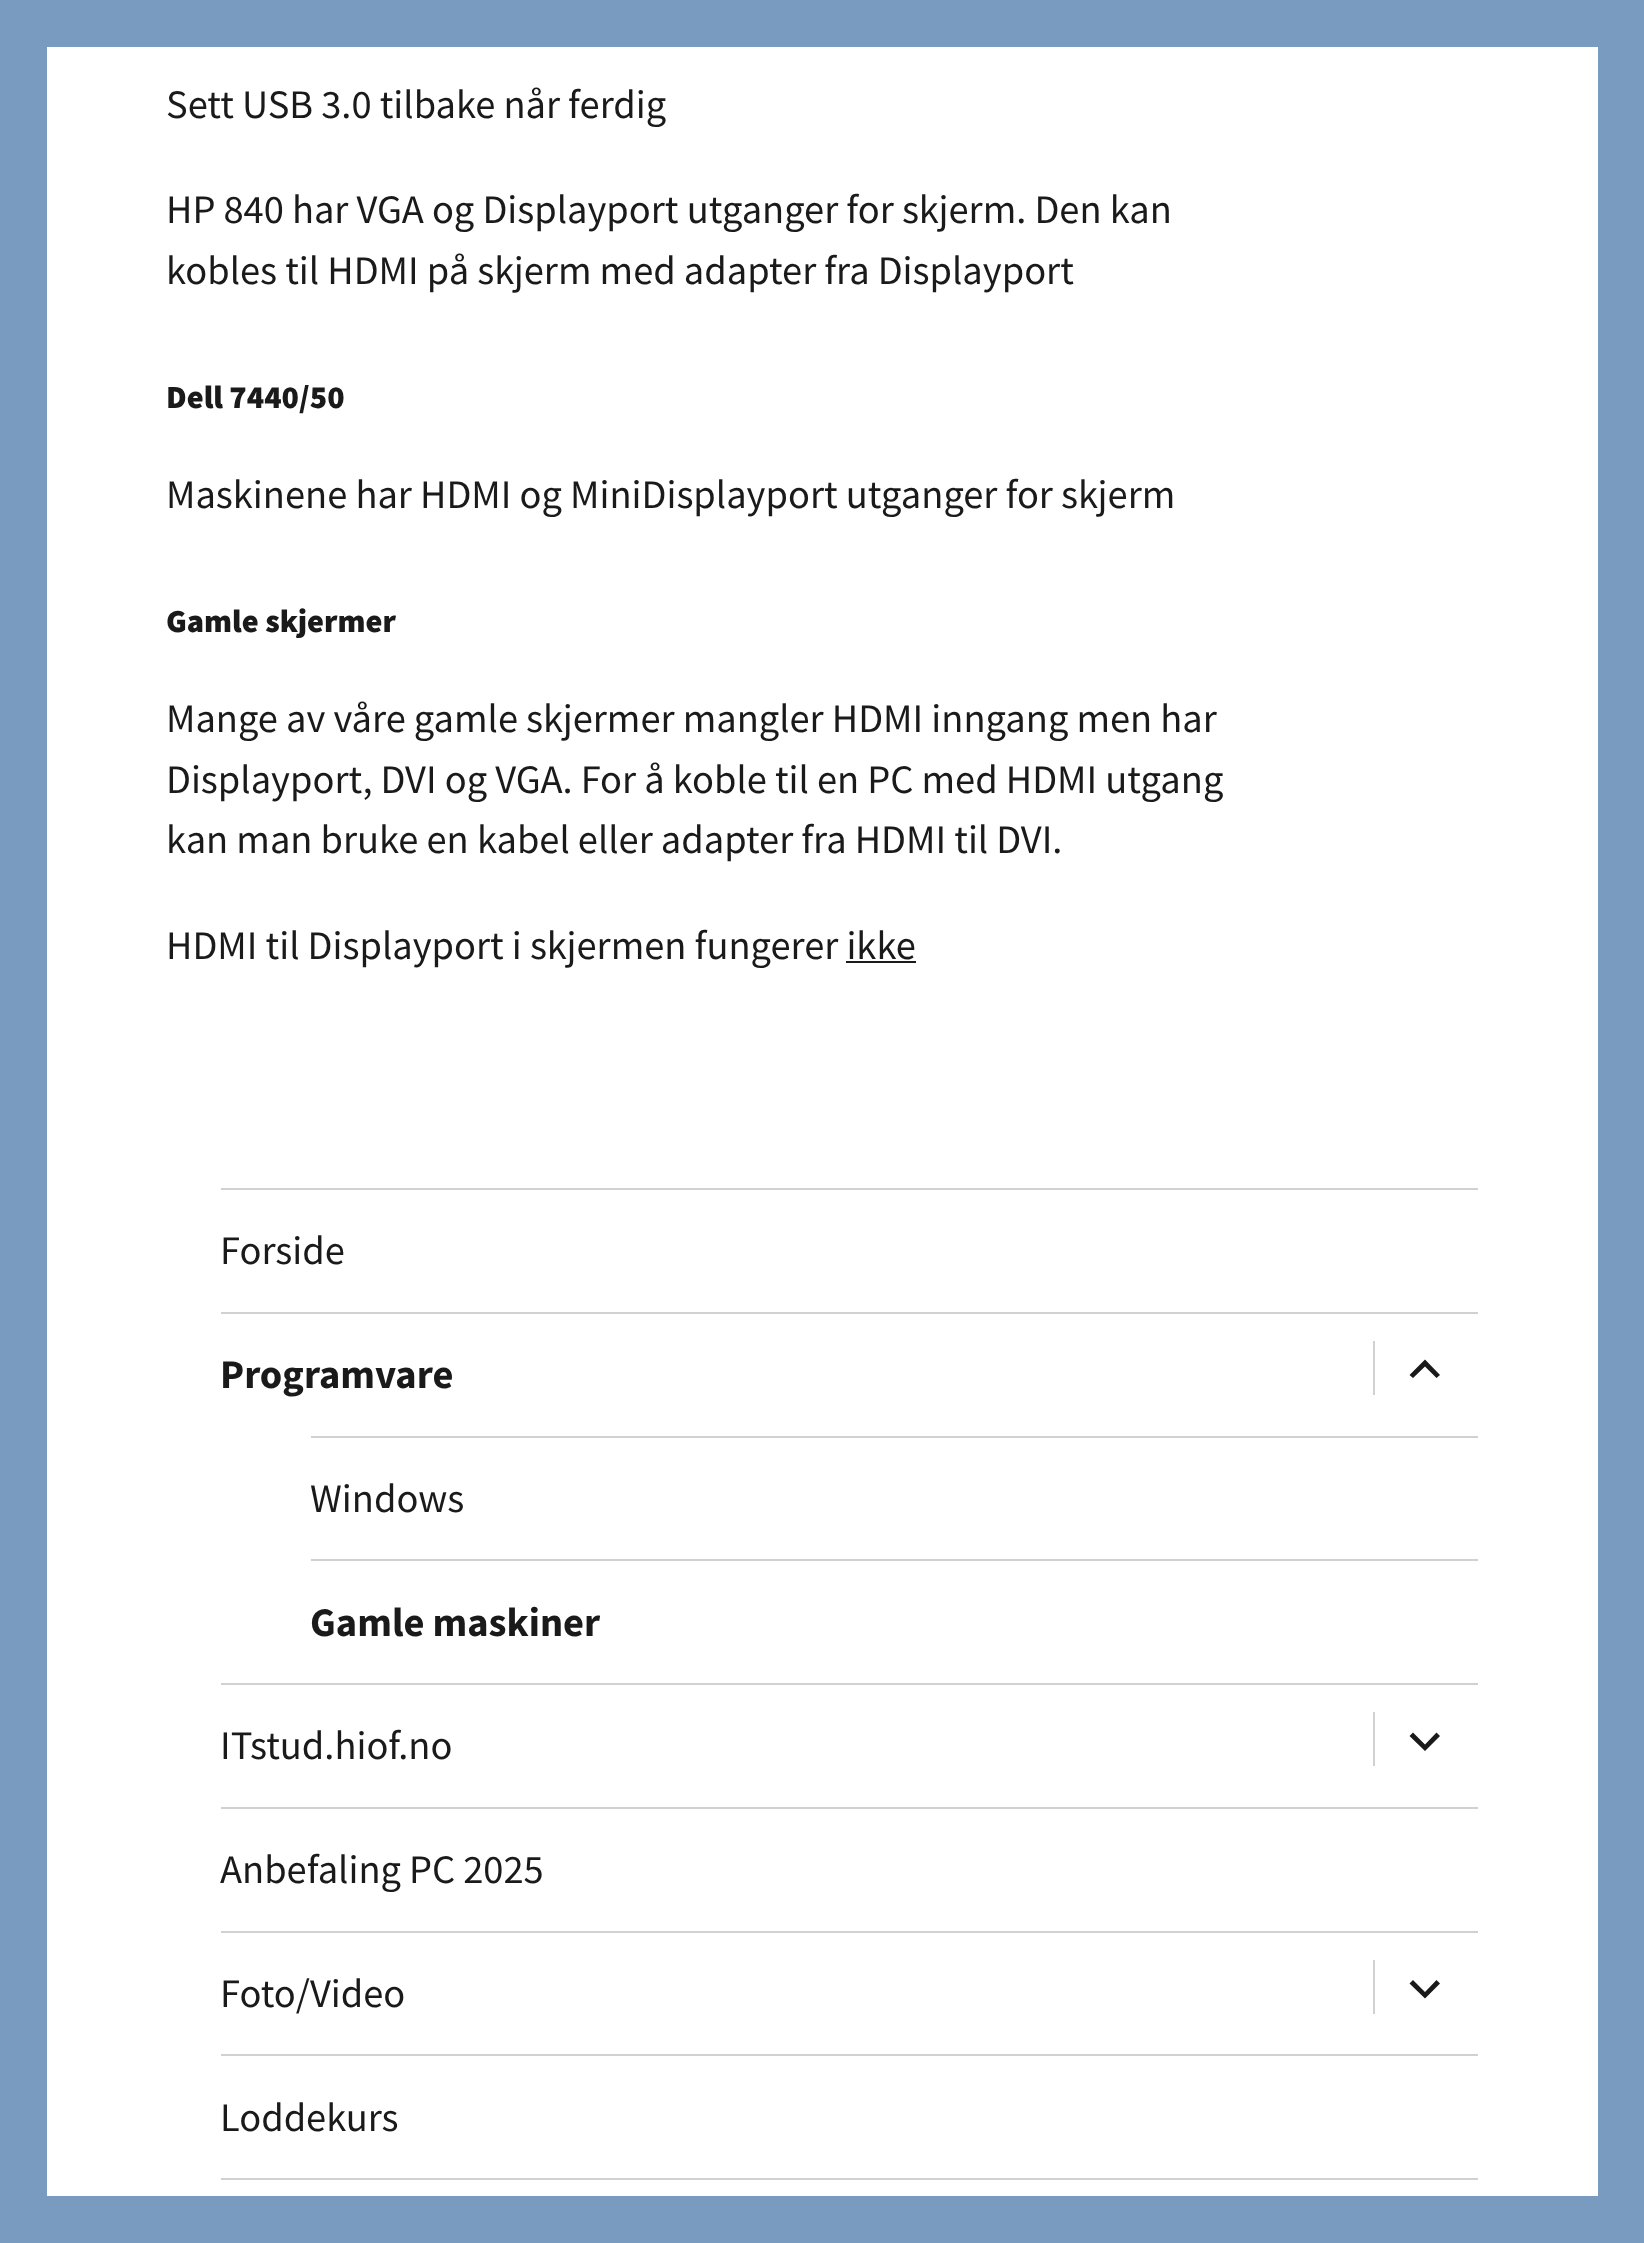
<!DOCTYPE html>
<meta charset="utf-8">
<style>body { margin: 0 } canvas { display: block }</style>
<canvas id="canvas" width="1644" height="2243"></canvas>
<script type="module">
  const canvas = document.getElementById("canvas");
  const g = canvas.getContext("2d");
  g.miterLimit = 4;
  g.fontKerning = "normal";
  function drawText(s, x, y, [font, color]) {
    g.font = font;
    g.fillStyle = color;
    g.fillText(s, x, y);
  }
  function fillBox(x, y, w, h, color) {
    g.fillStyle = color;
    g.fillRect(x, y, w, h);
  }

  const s1 = ["40.5px Source Sans Pro", "#1A1A1A"];
  const s2 = ["900 32.25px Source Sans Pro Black", "#1A1A1A"];
  const s3 = ["bold 40.5px Source Sans Pro", "#1A1A1A"];

  fillBox(0, 0, 1644, 2243, "#789BBF");
  fillBox(47, 47, 1551, 2149, "#FFFFFF");
  drawText("Sett USB 3.0 tilbake når ferdig", 166, 118, s1);
  drawText("HP 840 har VGA og Displayport utganger for skjerm. Den kan", 166, 223, s1);
  drawText("kobles til HDMI på skjerm med adapter fra Displayport", 166, 284, s1);
  drawText("Dell 7440/50", 166, 408, s2);
  drawText("Maskinene har HDMI og MiniDisplayport utganger for skjerm", 166, 508, s1);
  drawText("Gamle skjermer", 166, 632, s2);
  drawText("Mange av våre gamle skjermer mangler HDMI inngang men har", 166, 732, s1);
  drawText("Displayport, DVI og VGA. For å koble til en PC med HDMI utgang", 166, 793, s1);
  drawText("kan man bruke en kabel eller adapter fra HDMI til DVI.", 166, 853, s1);
  drawText("HDMI til Displayport i skjermen fungerer ikke", 166, 959, s1);
  fillBox(846, 961, 70, 2, "#1A1A1A");
  fillBox(221, 1188, 1257, 2, "#D1D1D1");
  drawText("Forside", 220, 1264, s1);
  fillBox(221, 1312, 1257, 2, "#D1D1D1");
  drawText("Programvare", 220, 1388, s3);
  fillBox(1373, 1341, 2, 54, "#D1D1D1");
  g.fillStyle = "#1A1A1A";
  g.beginPath();
  g.moveTo(1436.5, 1378);
  g.lineTo(1425, 1366.5);
  g.lineTo(1413, 1378);
  g.lineTo(1409.5, 1375);
  g.lineTo(1425, 1359.5);
  g.lineTo(1440, 1375);
  g.closePath();
  g.fill();
  fillBox(311, 1436, 1167, 2, "#D1D1D1");
  drawText("Windows", 310, 1512, s1);
  fillBox(311, 1559, 1167, 2, "#D1D1D1");
  drawText("Gamle maskiner", 310, 1636, s3);
  fillBox(221, 1683, 1257, 2, "#D1D1D1");
  drawText("ITstud.hiof.no", 220, 1759, s1);
  fillBox(1373, 1712, 2, 54, "#D1D1D1");
  g.fillStyle = "#1A1A1A";
  g.beginPath();
  g.moveTo(1436.5, 1732.5);
  g.lineTo(1440, 1736);
  g.lineTo(1425, 1751);
  g.lineTo(1409.5, 1736);
  g.lineTo(1413, 1732.5);
  g.lineTo(1425, 1744.5);
  g.closePath();
  g.fill();
  fillBox(221, 1807, 1257, 2, "#D1D1D1");
  drawText("Anbefaling PC 2025", 220, 1883, s1);
  fillBox(221, 1931, 1257, 2, "#D1D1D1");
  drawText("Foto/Video", 220, 2007, s1);
  fillBox(1373, 1960, 2, 54, "#D1D1D1");
  g.fillStyle = "#1A1A1A";
  g.beginPath();
  g.moveTo(1436.5, 1980);
  g.lineTo(1440, 1983.5);
  g.lineTo(1425, 1998.5);
  g.lineTo(1409.5, 1983.5);
  g.lineTo(1413, 1980);
  g.lineTo(1425, 1992);
  g.closePath();
  g.fill();
  fillBox(221, 2054, 1257, 2, "#D1D1D1");
  drawText("Loddekurs", 220, 2131, s1);
  fillBox(221, 2178, 1257, 2, "#D1D1D1");
</script>
